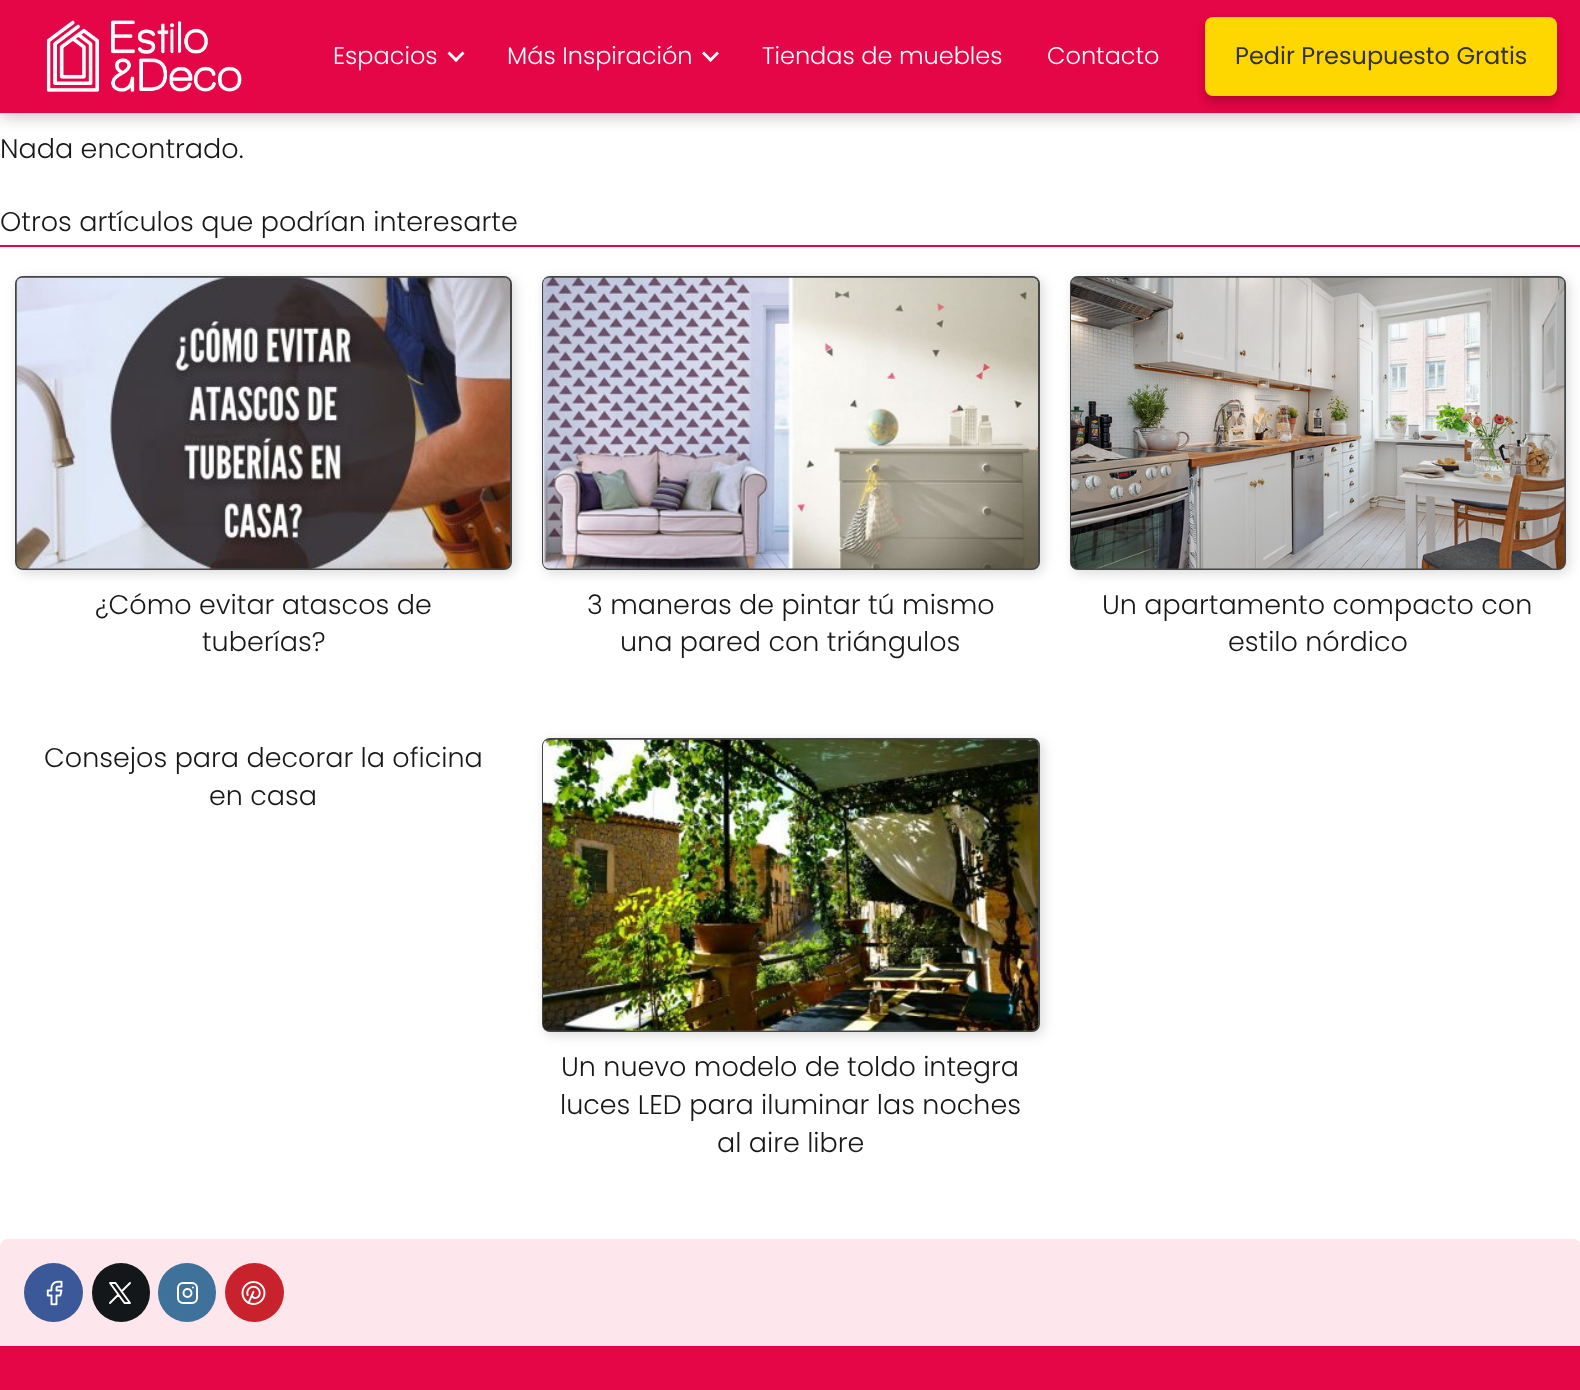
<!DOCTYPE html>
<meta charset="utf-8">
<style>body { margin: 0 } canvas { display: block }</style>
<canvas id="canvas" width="1580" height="1390"></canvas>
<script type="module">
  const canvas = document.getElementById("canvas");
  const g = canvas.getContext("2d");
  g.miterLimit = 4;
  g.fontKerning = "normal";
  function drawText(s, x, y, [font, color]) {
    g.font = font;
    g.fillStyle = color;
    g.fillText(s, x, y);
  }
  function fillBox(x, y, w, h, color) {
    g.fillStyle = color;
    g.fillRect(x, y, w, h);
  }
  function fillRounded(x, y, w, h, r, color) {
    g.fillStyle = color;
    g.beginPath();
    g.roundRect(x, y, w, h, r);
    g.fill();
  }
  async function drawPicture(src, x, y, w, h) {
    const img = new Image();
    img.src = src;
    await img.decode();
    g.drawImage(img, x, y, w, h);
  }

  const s1 = ["300 24px Poppins", "#FFFFFF"];
  const s2 = ["24px Poppins", "#333333"];
  const s3 = ["300 27px Poppins", "#181818"];

  fillBox(0, 0, 1580, 1390, "#FFFFFF");
  g.fillStyle = "rgba(0, 0, 0, 0.3)";
  g.filter = "blur(9px)";
  g.beginPath();
  g.rect(0, 2, 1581, 112);
  g.fill();
  g.filter = "none";
  fillBox(0, 0, 1580, 113, "#E40646");
  await drawPicture("pic1.png", 46, 20, 196, 72);
  drawText("Espacios", 333, 64, s1);
  g.beginPath();
  g.moveTo(462.5, 51.5);
  g.lineTo(464.5, 53.5);
  g.lineTo(456, 62);
  g.lineTo(454, 60);
  g.closePath();
  g.fill();
  g.beginPath();
  g.moveTo(449.5, 51.5);
  g.lineTo(458, 60);
  g.lineTo(456, 62);
  g.lineTo(447.5, 53.5);
  g.closePath();
  g.fill();
  drawText("Más Inspiración", 507, 64, s1);
  g.beginPath();
  g.moveTo(717, 51.5);
  g.lineTo(719, 53.5);
  g.lineTo(710.5, 62);
  g.lineTo(708.5, 60);
  g.closePath();
  g.fill();
  g.beginPath();
  g.moveTo(704, 51.5);
  g.lineTo(712.5, 60);
  g.lineTo(710.5, 62);
  g.lineTo(702, 53.5);
  g.closePath();
  g.fill();
  drawText("Tiendas de muebles", 762, 64, s1);
  drawText("Contacto", 1047, 64, s1);
  g.fillStyle = "rgba(0, 0, 0, 0.2)";
  g.filter = "blur(4.5px)";
  g.beginPath();
  g.roundRect(1205, 23, 352, 79, 8);
  g.fill();
  g.filter = "none";
  fillRounded(1205, 17, 352, 79, 8, "#FFD700");
  drawText("Pedir Presupuesto Gratis", 1235, 64, s2);
  drawText("Nada encontrado.", 0, 158, s3);
  fillBox(0, 245, 1580, 2, "#E40646");
  drawText("Otros artículos que podrían interesarte", 0, 231, s3);
  g.fillStyle = "rgba(0, 0, 0, 0.15)";
  g.filter = "blur(6px)";
  g.beginPath();
  g.roundRect(18, 279, 497, 294, 8);
  g.fill();
  g.filter = "none";
  g.beginPath();
  g.roundRect(16, 277, 495, 292, 7);
  g.strokeStyle = "#444444";
  g.lineWidth = 2;
  g.stroke();
  await drawPicture("pic2.png", 16, 277, 494, 292);
  drawText("¿Cómo evitar atascos de", 95, 614, s3);
  drawText("tuberías?", 202, 651, s3);
  g.fillStyle = "rgba(0, 0, 0, 0.15)";
  g.filter = "blur(6px)";
  g.beginPath();
  g.roundRect(545, 279, 498, 294, 8);
  g.fill();
  g.filter = "none";
  g.beginPath();
  g.roundRect(543, 277, 496, 292, 7);
  g.stroke();
  await drawPicture("pic3.png", 543, 277, 495, 292);
  drawText("3 maneras de pintar tú mismo", 587, 614, s3);
  drawText("una pared con triángulos", 620, 651, s3);
  g.fillStyle = "rgba(0, 0, 0, 0.15)";
  g.filter = "blur(6px)";
  g.beginPath();
  g.roundRect(1073, 279, 496, 294, 8);
  g.fill();
  g.filter = "none";
  g.beginPath();
  g.roundRect(1071, 277, 494, 292, 7);
  g.stroke();
  await drawPicture("pic4.png", 1071, 277, 494, 292);
  drawText("Un apartamento compacto con", 1102, 614, s3);
  drawText("estilo nórdico", 1228, 651, s3);
  drawText("Consejos para decorar la oficina", 44, 767, s3);
  drawText("en casa", 209, 805, s3);
  g.fillStyle = "rgba(0, 0, 0, 0.15)";
  g.filter = "blur(6px)";
  g.beginPath();
  g.roundRect(545, 741, 498, 294, 8);
  g.fill();
  g.filter = "none";
  g.beginPath();
  g.roundRect(543, 739, 496, 292, 7);
  g.stroke();
  await drawPicture("pic5.png", 543, 739, 495, 292);
  drawText("Un nuevo modelo de toldo integra", 561, 1076, s3);
  drawText("luces LED para iluminar las noches", 560, 1114, s3);
  drawText("al aire libre", 717, 1152, s3);
  g.fillStyle = "#FDE7ED";
  g.beginPath();
  g.moveTo(8, 1239);
  g.lineTo(1573, 1239);
  g.bezierCurveTo(1577.5, 1239, 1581, 1242.5, 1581, 1247);
  g.lineTo(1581, 1346);
  g.lineTo(0, 1346);
  g.lineTo(0, 1247);
  g.bezierCurveTo(0, 1242.5, 3.5, 1239, 8, 1239);
  g.closePath();
  g.fill();
  g.fillStyle = "#3B5998";
  g.beginPath();
  g.arc(53.5, 1292.5, 29.5, 0, Math.PI * 2);
  g.fill();
  await drawPicture("pic6.png", 46, 1280, 17, 26);
  fillRounded(92, 1263, 58, 59, 29, "#14171A");
  g.beginPath();
  g.moveTo(110, 1283);
  g.lineTo(124.5, 1303);
  g.lineTo(130, 1303);
  g.lineTo(115.5, 1283);
  g.closePath();
  g.moveTo(110, 1303);
  g.lineTo(118.5, 1294.5);
  g.moveTo(121.5, 1291.5);
  g.lineTo(130, 1283);
  g.strokeStyle = "#FFFFFF";
  g.lineWidth = 1.9;
  g.lineCap = "round";
  g.lineJoin = "round";
  g.stroke();
  fillRounded(158, 1263, 58, 59, 29, "#3F729B");
  g.beginPath();
  g.roundRect(178, 1283, 19, 20, 5);
  g.lineWidth = 2;
  g.lineJoin = "miter";
  g.stroke();
  g.beginPath();
  g.arc(187.5, 1293, 4, 0, Math.PI * 2);
  g.lineWidth = 1.9;
  g.stroke();
  g.beginPath();
  g.moveTo(193, 1287.5);
  g.lineTo(193, 1287.5);
  g.lineJoin = "round";
  g.stroke();
  g.fillStyle = "#C8232C";
  g.beginPath();
  g.arc(254.5, 1292.5, 29.5, 0, Math.PI * 2);
  g.fill();
  await drawPicture("pic7.png", 241, 1281, 25, 24);
  fillBox(0, 1346, 1580, 44, "#E40646");
</script>
